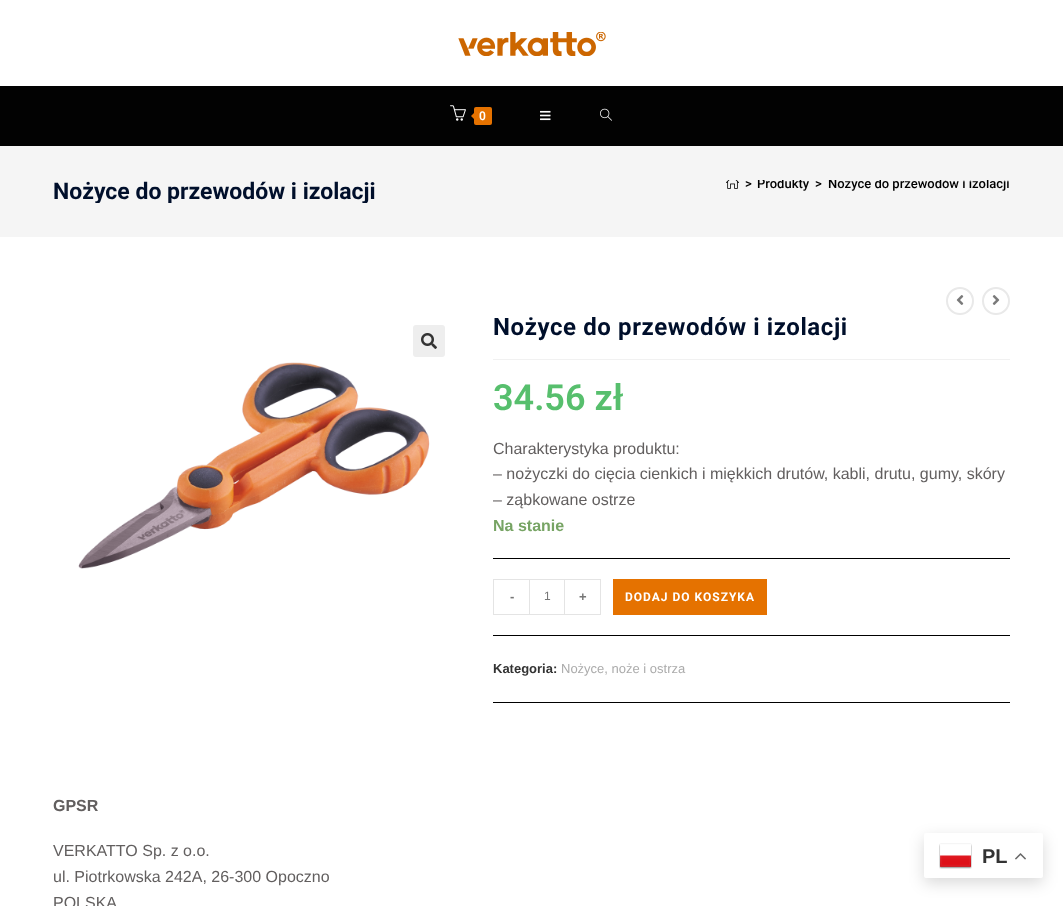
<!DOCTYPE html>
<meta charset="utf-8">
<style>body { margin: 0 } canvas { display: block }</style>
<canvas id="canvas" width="1063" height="906"></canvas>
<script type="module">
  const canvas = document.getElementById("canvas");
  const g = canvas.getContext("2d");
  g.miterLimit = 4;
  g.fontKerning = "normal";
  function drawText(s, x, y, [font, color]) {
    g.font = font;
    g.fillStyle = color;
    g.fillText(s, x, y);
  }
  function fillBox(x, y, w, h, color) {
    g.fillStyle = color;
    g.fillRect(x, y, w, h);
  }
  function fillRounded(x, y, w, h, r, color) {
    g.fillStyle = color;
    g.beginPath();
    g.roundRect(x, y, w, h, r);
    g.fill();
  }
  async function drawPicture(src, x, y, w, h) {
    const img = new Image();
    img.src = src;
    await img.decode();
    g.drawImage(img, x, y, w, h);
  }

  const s1 = ["600 12px Roboto", "#FFFFFF"];
  const s2 = ["bold 23px Roboto", "#000F2B"];
  const s3 = ["500 13px Roboto", "#000000"];
  const s4 = ["bold 24px Roboto", "#000F2B"];
  const s5 = ["600 36px Roboto", "#57BF6D"];
  const s6 = ["16px Liberation Sans", "#625F5F"];
  const s7 = ["bold 16px Liberation Sans", "#77A464"];
  const s8 = ["bold 13px Liberation Sans", "#777777"];
  const s9 = ["12px Liberation Sans", "#777777"];
  const s10 = ["bold 12px Roboto", "#FFFFFF"];
  const s11 = ["bold 13px Liberation Sans", "#333333"];
  const s12 = ["13px Liberation Sans", "#ABABAB"];
  const s13 = ["bold 16px Liberation Sans", "#625F5F"];
  const s14 = ["bold 20px Liberation Sans", "#333333"];

  fillBox(0, 0, 1063, 906, "#FFFFFF");
  await drawPicture("pic1.png", 458, 32, 148, 24);
  fillBox(0, 86, 1063, 60, "#020202");
  await drawPicture("pic2.png", 450, 105, 16, 16);
  fillRounded(474, 107, 18, 18, 2, "#E57200");
  g.beginPath();
  g.moveTo(476, 111);
  g.lineTo(476, 121);
  g.lineTo(471, 116);
  g.closePath();
  g.fill();
  g.letterSpacing = "1px";
  drawText("0", 479, 120, s1);
  await drawPicture("pic3.png", 540, 110, 11, 11);
  await drawPicture("pic4.png", 600, 108, 12, 13);
  fillBox(0, 146, 1063, 91, "#F5F5F5");
  g.save();
  g.beginPath();
  g.rect(53, 180, 957, 23);
  g.clip();
  g.letterSpacing = "0px";
  drawText("Nożyce do przewodów i izolacji", 53, 199, s2);
  g.restore();
  await drawPicture("pic5.png", 726, 180, 13, 9);
  g.letterSpacing = "0px";
  drawText(">", 745, 188, s3);
  g.save();
  g.beginPath();
  g.rect(53, 180, 957, 23);
  g.clip();
  drawText("Produkty", 757, 188, s3);
  g.restore();
  drawText(">", 815, 188, s3);
  g.save();
  g.beginPath();
  g.rect(53, 180, 957, 23);
  g.clip();
  drawText("Nożyce do przewodów i izolacji", 828, 188, s3);
  g.restore();
  g.beginPath();
  g.arc(960, 301, 13, 0, Math.PI * 2);
  g.strokeStyle = "#E9E9E9";
  g.lineWidth = 2;
  g.stroke();
  await drawPicture("pic6.png", 956, 295, 8, 10);
  g.beginPath();
  g.arc(996, 301, 13, 0, Math.PI * 2);
  g.stroke();
  await drawPicture("pic7.png", 992, 295, 8, 10);
  fillRounded(413, 325, 32, 32, 3, "#EEEEEE");
  await drawPicture("pic8.png", 421, 333, 16, 16);
  await drawPicture("pic9.png", 78, 362, 352, 207);
  fillBox(493, 359, 517, 1, "#F1F1F1");
  g.letterSpacing = "0.6px";
  drawText("Nożyce do przewodów i izolacji", 493, 335, s4);
  g.letterSpacing = "0px";
  drawText("34.56 zł", 493, 410, s5);
  drawText("Charakterystyka produktu:", 493, 454, s6);
  drawText("– nożyczki do cięcia cienkich i miękkich drutów, kabli, drutu, gumy, skóry", 493, 479, s6);
  drawText("– ząbkowane ostrze", 493, 505, s6);
  drawText("Na stanie", 493, 531, s7);
  fillBox(493, 558, 517, 1, "#000000");
  fillBox(493, 635, 517, 1, "#000000");
  fillBox(493, 579, 36, 1, "#E4E4E4");
  fillBox(493, 614, 36, 1, "#E4E4E4");
  fillBox(493, 579, 1, 36, "#E4E4E4");
  drawText("-", 510, 601, s8);
  g.strokeStyle = "#E4E4E4";
  g.lineWidth = 1;
  g.strokeRect(529.5, 579.5, 35, 35);
  drawText("1", 544, 600, s9);
  fillBox(565, 579, 36, 1, "#E4E4E4");
  fillBox(600, 579, 1, 36, "#E4E4E4");
  fillBox(565, 614, 36, 1, "#E4E4E4");
  drawText("+", 579, 601, s8);
  fillBox(613, 579, 154, 36, "#E57200");
  g.letterSpacing = "1px";
  drawText("DODAJ DO KOSZYKA", 625, 601, s10);
  fillBox(493, 702, 517, 1, "#000000");
  g.letterSpacing = "0px";
  drawText("Kategoria:", 493, 673, s11);
  drawText("Nożyce, noże i ostrza", 561, 673, s12);
  drawText("GPSR", 53, 811, s13);
  drawText("VERKATTO Sp. z o.o.", 53, 856, s6);
  drawText("ul. Piotrkowska 242A, 26-300 Opoczno", 53, 882, s6);
  drawText("POLSKA", 53, 908, s6);
  g.fillStyle = "rgba(0, 0, 0, 0.15)";
  g.filter = "blur(7.5px)";
  g.beginPath();
  g.roundRect(924, 838, 119, 45, 2);
  g.fill();
  g.filter = "none";
  fillRounded(924, 833, 119, 45, 2, "#FFFFFF");
  await drawPicture("pic10.png", 939, 843, 33, 26);
  drawText("PL", 982, 863, s14);
  await drawPicture("pic11.png", 1015, 853, 11, 7);
</script>
